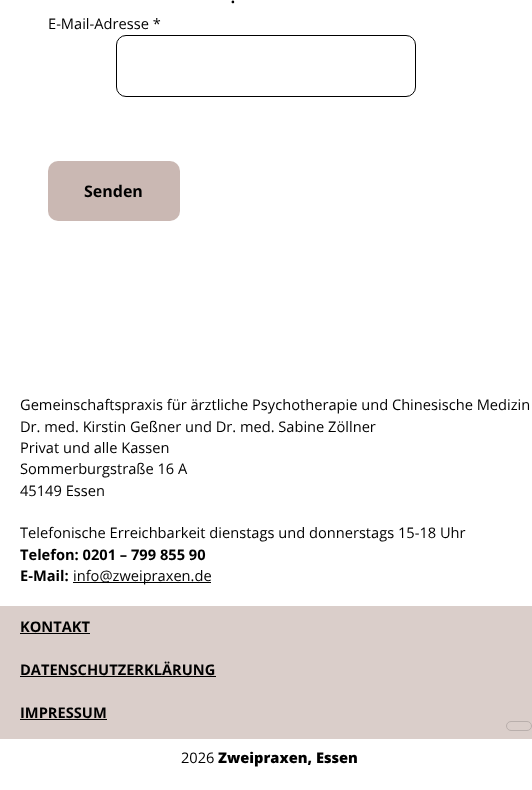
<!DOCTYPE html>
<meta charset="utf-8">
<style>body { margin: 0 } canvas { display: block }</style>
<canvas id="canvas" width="532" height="790"></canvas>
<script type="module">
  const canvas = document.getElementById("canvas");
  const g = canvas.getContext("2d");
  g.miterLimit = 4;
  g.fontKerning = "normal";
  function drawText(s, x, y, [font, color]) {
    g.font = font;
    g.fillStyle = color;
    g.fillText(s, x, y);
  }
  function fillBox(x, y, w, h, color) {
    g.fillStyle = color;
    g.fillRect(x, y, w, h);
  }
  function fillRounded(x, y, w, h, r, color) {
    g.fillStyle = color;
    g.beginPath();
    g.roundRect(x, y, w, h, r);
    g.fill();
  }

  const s1 = ["22px Open Sans", "#000000"];
  const s2 = ["14.65px Open Sans", "#000000"];
  const s3 = ["bold 16px Open Sans", "#000000"];
  const s4 = ["bold 14.65px Open Sans", "#000000"];
  const s5 = ["800 14.65px Open Sans", "#000000"];

  fillBox(0, 0, 532, 790, "#FFFFFF");
  drawText(".", 230, 3, s1);
  drawText("E-Mail-Adresse *", 48, 29, s2);
  g.beginPath();
  g.roundRect(116.5, 35.5, 299, 61, 9.5);
  g.strokeStyle = "#000000";
  g.stroke();
  fillRounded(48, 161, 132, 60, 10, "#CAB8B3");
  drawText("Senden", 84, 197, s3);
  drawText("Gemeinschaftspraxis für ärztliche Psy‍cho‍the‍ra‍pie und Chi‍ne‍si‍sche Me‍di‍zin", 20, 410, s2);
  drawText("Dr. med. Kirstin Geßner und Dr. med. Sabine Zöllner", 20, 432, s2);
  drawText("Privat und alle Kassen", 20, 453, s2);
  drawText("Sommerburgstraße 16 A", 20, 474, s2);
  drawText("45149 Essen", 20, 496, s2);
  drawText("Telefonische Erreichbarkeit dienstags und don‍ners‍tags 15‍-‍18 Uhr", 20, 538, s2);
  drawText("Telefon: 0201 – 799 855 90", 20, 560, s4);
  drawText("E-Mail:", 20, 581, s4);
  fillBox(73, 582, 138, 1, "#000000");
  drawText("info@zweipraxen.de", 73, 581, s2);
  fillBox(0, 606, 532, 133, "#DACECA");
  drawText("KONTAKT", 20, 632, s4);
  fillBox(20, 633, 70, 1, "#000000");
  drawText("DATENSCHUTZERKLÄRUNG", 20, 675, s4);
  fillBox(20, 676, 196, 1, "#000000");
  drawText("IMPRESSUM", 20, 718, s4);
  fillBox(20, 719, 87, 1, "#000000");
  g.beginPath();
  g.roundRect(506.5, 721.5, 25, 9, 4.5);
  g.strokeStyle = "#B9AFAC";
  g.stroke();
  drawText("2026", 181, 763, s2);
  drawText("Zweipraxen, Essen", 218, 763, s5);
</script>
